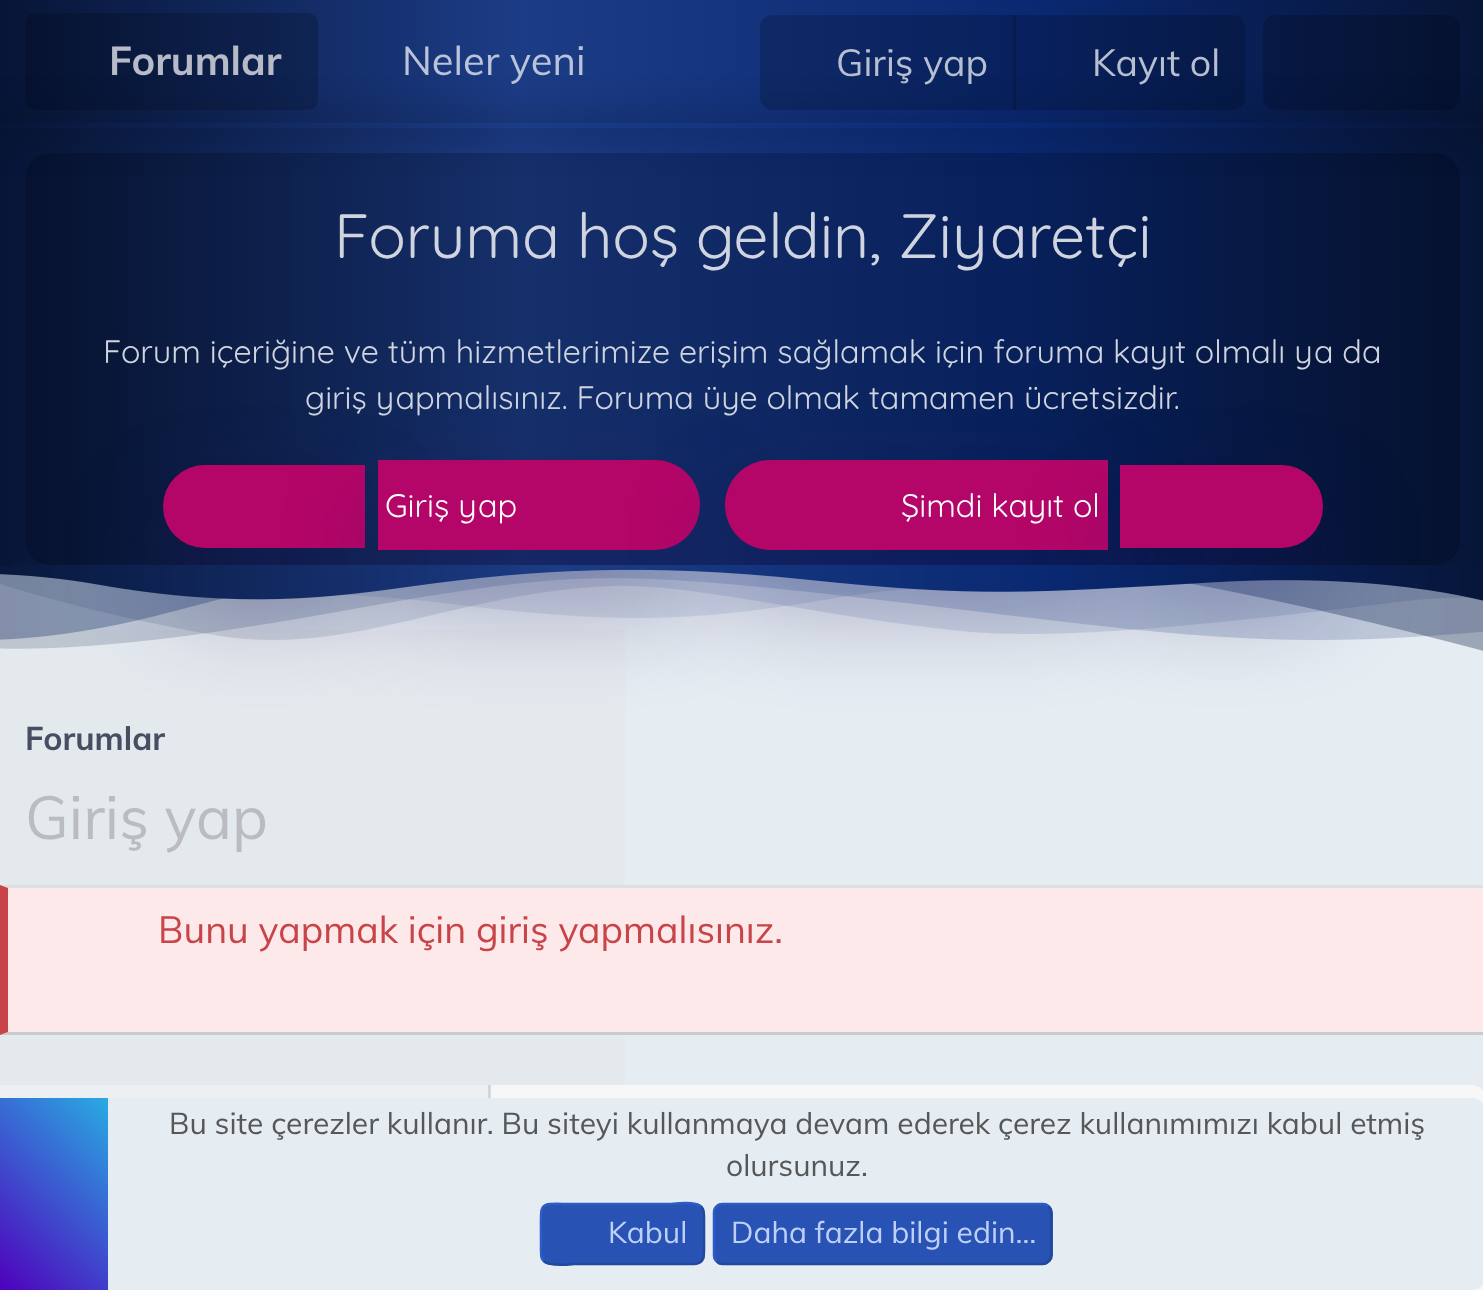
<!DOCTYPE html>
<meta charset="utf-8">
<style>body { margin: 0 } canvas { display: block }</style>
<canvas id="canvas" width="1483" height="1290"></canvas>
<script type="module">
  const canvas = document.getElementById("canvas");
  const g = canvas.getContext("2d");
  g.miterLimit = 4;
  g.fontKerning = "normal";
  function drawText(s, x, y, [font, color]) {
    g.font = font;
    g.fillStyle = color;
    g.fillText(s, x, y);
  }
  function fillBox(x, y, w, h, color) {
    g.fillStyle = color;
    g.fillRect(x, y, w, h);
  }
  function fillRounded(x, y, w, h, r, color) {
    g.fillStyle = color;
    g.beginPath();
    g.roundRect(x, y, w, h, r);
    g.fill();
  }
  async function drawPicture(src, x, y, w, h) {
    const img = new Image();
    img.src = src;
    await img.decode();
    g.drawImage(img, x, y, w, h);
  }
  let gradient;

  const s1 = ["bold 40px Muli", "#B6BBC7"];
  const s2 = ["40px Muli", "#BAC3D9"];
  const s3 = ["37.5px Muli", "#B6BED0"];
  const s4 = ["300 62.5px Quicksand", "#CFD4DF"];
  const s5 = ["300 32.5px Quicksand", "#CFD4DF"];
  const s6 = ["300 32.5px Quicksand", "#FFFFFF"];
  const s7 = ["bold 32.5px Muli", "#474E62"];
  const s8 = ["60px Muli", "#BBBCC1"];
  const s9 = ["37.5px Muli", "#C84448"];
  const s10 = ["30px Muli", "#575757"];
  const s11 = ["30px Muli", "#BED0F8"];

  fillBox(0, 0, 1483, 1290, "#E5ECF2");
  gradient = g.createLinearGradient(0, 55, 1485, 55);
  gradient.addColorStop(0, "#071537");
  gradient.addColorStop(0.35, "#1C3C86");
  gradient.addColorStop(0.69, "#0A2973");
  gradient.addColorStop(1, "#071537");
  g.fillStyle = gradient;
  g.fillRect(0, 0, 1483, 110);
  fillRounded(25, 13, 293, 97, 10, "rgba(0, 0, 0, 0.18)");
  drawText("Forumlar", 109, 75, s1);
  drawText("Neler yeni", 402, 75, s2);
  fillRounded(760, 15, 485, 95, 13, "rgba(0, 0, 0, 0.18)");
  drawText("Giriş yap", 836, 76, s3);
  fillBox(1013, 15, 3, 95, "#071C4D");
  drawText("Kayıt ol", 1092, 76, s3);
  fillRounded(1263, 15, 197, 95, 13, "rgba(0, 0, 0, 0.18)");
  gradient = g.createLinearGradient(0, 338, 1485, 337);
  gradient.addColorStop(0, "#071537");
  gradient.addColorStop(0.35, "#1C3C86");
  gradient.addColorStop(0.69, "#0A2973");
  gradient.addColorStop(1, "#071537");
  g.fillStyle = gradient;
  g.fillRect(0, 110, 1483, 455);
  fillRounded(25, 153, 1435, 412, 25, "rgba(0, 0, 0, 0.2)");
  g.save();
  g.beginPath();
  g.moveTo(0, 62);
  g.lineTo(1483, 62);
  g.lineTo(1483, 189);
  g.lineTo(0, 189);
  g.closePath();
  g.moveTo(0, 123);
  g.lineTo(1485, 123);
  g.lineTo(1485, 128);
  g.lineTo(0, 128);
  g.closePath();
  g.clip("evenodd");
  g.fillStyle = "#020202";
  g.filter = "blur(20px)";
  g.beginPath();
  g.rect(0, 123, 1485, 5);
  g.fill();
  g.filter = "none";
  g.restore();
  drawText("Foruma hoş geldin, Ziyaretçi", 334, 258, s4);
  drawText("Forum içeriğine ve tüm hizmetlerimize erişim sağlamak için foruma kayıt olmalı ya da", 103, 363, s5);
  drawText("giriş yapmalısınız. Foruma üye olmak tamamen ücretsizdir.", 305, 409, s5);
  fillBox(0, 630, 625, 468, "#E4E9EE");
  g.fillStyle = "rgba(28, 9, 80, 0.35)";
  g.filter = "blur(50px)";
  g.beginPath();
  g.roundRect(163, 515, 202, 83, 41.5);
  g.fill();
  g.filter = "none";
  g.fillStyle = "#B40669";
  g.beginPath();
  g.roundRect(163, 465, 202, 83, [41.5, 0, 0, 41.5]);
  g.fill();
  g.fillStyle = "rgba(28, 9, 80, 0.35)";
  g.filter = "blur(50px)";
  g.beginPath();
  g.roundRect(378, 510, 322, 90, 45);
  g.fill();
  g.filter = "none";
  g.fillStyle = "#B40669";
  g.beginPath();
  g.roundRect(378, 460, 322, 90, [0, 45, 45, 0]);
  g.fill();
  drawText("Giriş yap", 385, 517, s6);
  g.fillStyle = "rgba(28, 9, 80, 0.35)";
  g.filter = "blur(50px)";
  g.beginPath();
  g.roundRect(725, 510, 383, 90, 45);
  g.fill();
  g.filter = "none";
  g.fillStyle = "#B40669";
  g.beginPath();
  g.roundRect(725, 460, 383, 90, [45, 0, 0, 45]);
  g.fill();
  g.fillStyle = "rgba(28, 9, 80, 0.35)";
  g.filter = "blur(50px)";
  g.beginPath();
  g.roundRect(1120, 515, 203, 83, 41.5);
  g.fill();
  g.filter = "none";
  drawText("Şimdi kayıt ol", 901, 517, s6);
  g.fillStyle = "#B40669";
  g.beginPath();
  g.roundRect(1120, 465, 203, 83, [0, 41.5, 41.5, 0]);
  g.fill();
  await drawPicture("pic1.png", 0, 565, 1483, 86);
  drawText("Forumlar", 25, 750, s7);
  drawText("Giriş yap", 25, 839, s8);
  fillBox(0, 885, 1483, 150, "#FDE9E9");
  g.fillStyle = "#DFDFDF";
  g.beginPath();
  g.moveTo(0, 885);
  g.lineTo(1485, 885);
  g.lineTo(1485, 888);
  g.lineTo(8, 888);
  g.closePath();
  g.fill();
  g.fillStyle = "#CBCBCB";
  g.beginPath();
  g.moveTo(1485, 1035);
  g.lineTo(0, 1035);
  g.lineTo(8, 1032);
  g.lineTo(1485, 1032);
  g.closePath();
  g.fill();
  g.fillStyle = "#C84448";
  g.beginPath();
  g.moveTo(0, 1035);
  g.lineTo(0, 885);
  g.lineTo(8, 888);
  g.lineTo(8, 1032);
  g.closePath();
  g.fill();
  drawText("Bunu yapmak için giriş yapmalısınız.", 158, 943, s9);
  fillRounded(0, 1085, 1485, 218, 13, "rgba(247, 247, 247, 0.99)");
  fillBox(0, 1085, 490, 13, "#EDF0F2");
  fillBox(488, 1085, 3, 13, "rgba(109, 106, 106, 0.2)");
  fillRounded(0, 1098, 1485, 192, 13, "#E5ECF2");
  gradient = g.createLinearGradient(128, 1118, -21, 1269);
  gradient.addColorStop(0, "#29ABE2");
  gradient.addColorStop(1, "#4F00BC");
  g.fillStyle = gradient;
  g.fillRect(0, 1098, 108, 192);
  drawText("Bu site çerezler kullanır. Bu siteyi kullanmaya devam ederek çerez kullanımımızı kabul etmiş", 169, 1134, s10);
  drawText("olursunuz.", 726, 1176, s10);
  fillRounded(540, 1203, 165, 62, 10, "#2852B3");
  g.beginPath();
  g.moveTo(701, 1206.5);
  g.bezierCurveTo(704.5, 1210, 704, 1215, 704, 1219.5);
  g.lineTo(704, 1234);
  g.bezierCurveTo(704, 1268, 707, 1264, 671, 1264);
  g.lineTo(574, 1264);
  g.bezierCurveTo(572, 1264, 550, 1267, 544, 1261);
  g.strokeStyle = "#23489E";
  g.lineWidth = 2.5;
  g.stroke();
  g.beginPath();
  g.moveTo(544, 1261);
  g.bezierCurveTo(540.5, 1257.5, 541, 1252.5, 541, 1248);
  g.lineTo(541, 1234);
  g.bezierCurveTo(541, 1199.5, 538, 1204, 574, 1204);
  g.lineTo(671, 1204);
  g.bezierCurveTo(673, 1204, 695, 1200.5, 701, 1206.5);
  g.strokeStyle = "#2D5CC8";
  g.stroke();
  drawText("Kabul", 608, 1243, s11);
  fillRounded(713, 1203, 340, 62, 10, "#2852B3");
  g.beginPath();
  g.moveTo(1048.5, 1206.5);
  g.bezierCurveTo(1050.5, 1208, 1051, 1210, 1051, 1212.5);
  g.lineTo(1051, 1255);
  g.bezierCurveTo(1051, 1257.5, 1050.5, 1259.5, 1048.5, 1261);
  g.bezierCurveTo(1047, 1263, 1045, 1264, 1042.5, 1264);
  g.lineTo(722.5, 1264);
  g.bezierCurveTo(720, 1264, 718, 1263, 716.5, 1261);
  g.strokeStyle = "#23489E";
  g.stroke();
  g.beginPath();
  g.moveTo(716.5, 1261);
  g.bezierCurveTo(714.5, 1259.5, 714, 1257.5, 714, 1255);
  g.lineTo(714, 1212.5);
  g.bezierCurveTo(714, 1210, 714.5, 1208, 716.5, 1206.5);
  g.bezierCurveTo(718, 1204.5, 720, 1204, 722.5, 1204);
  g.lineTo(1042.5, 1204);
  g.bezierCurveTo(1045, 1204, 1047, 1204.5, 1048.5, 1206.5);
  g.strokeStyle = "#2D5CC8";
  g.stroke();
  drawText("Daha fazla bilgi edin…", 731, 1243, s11);
</script>
